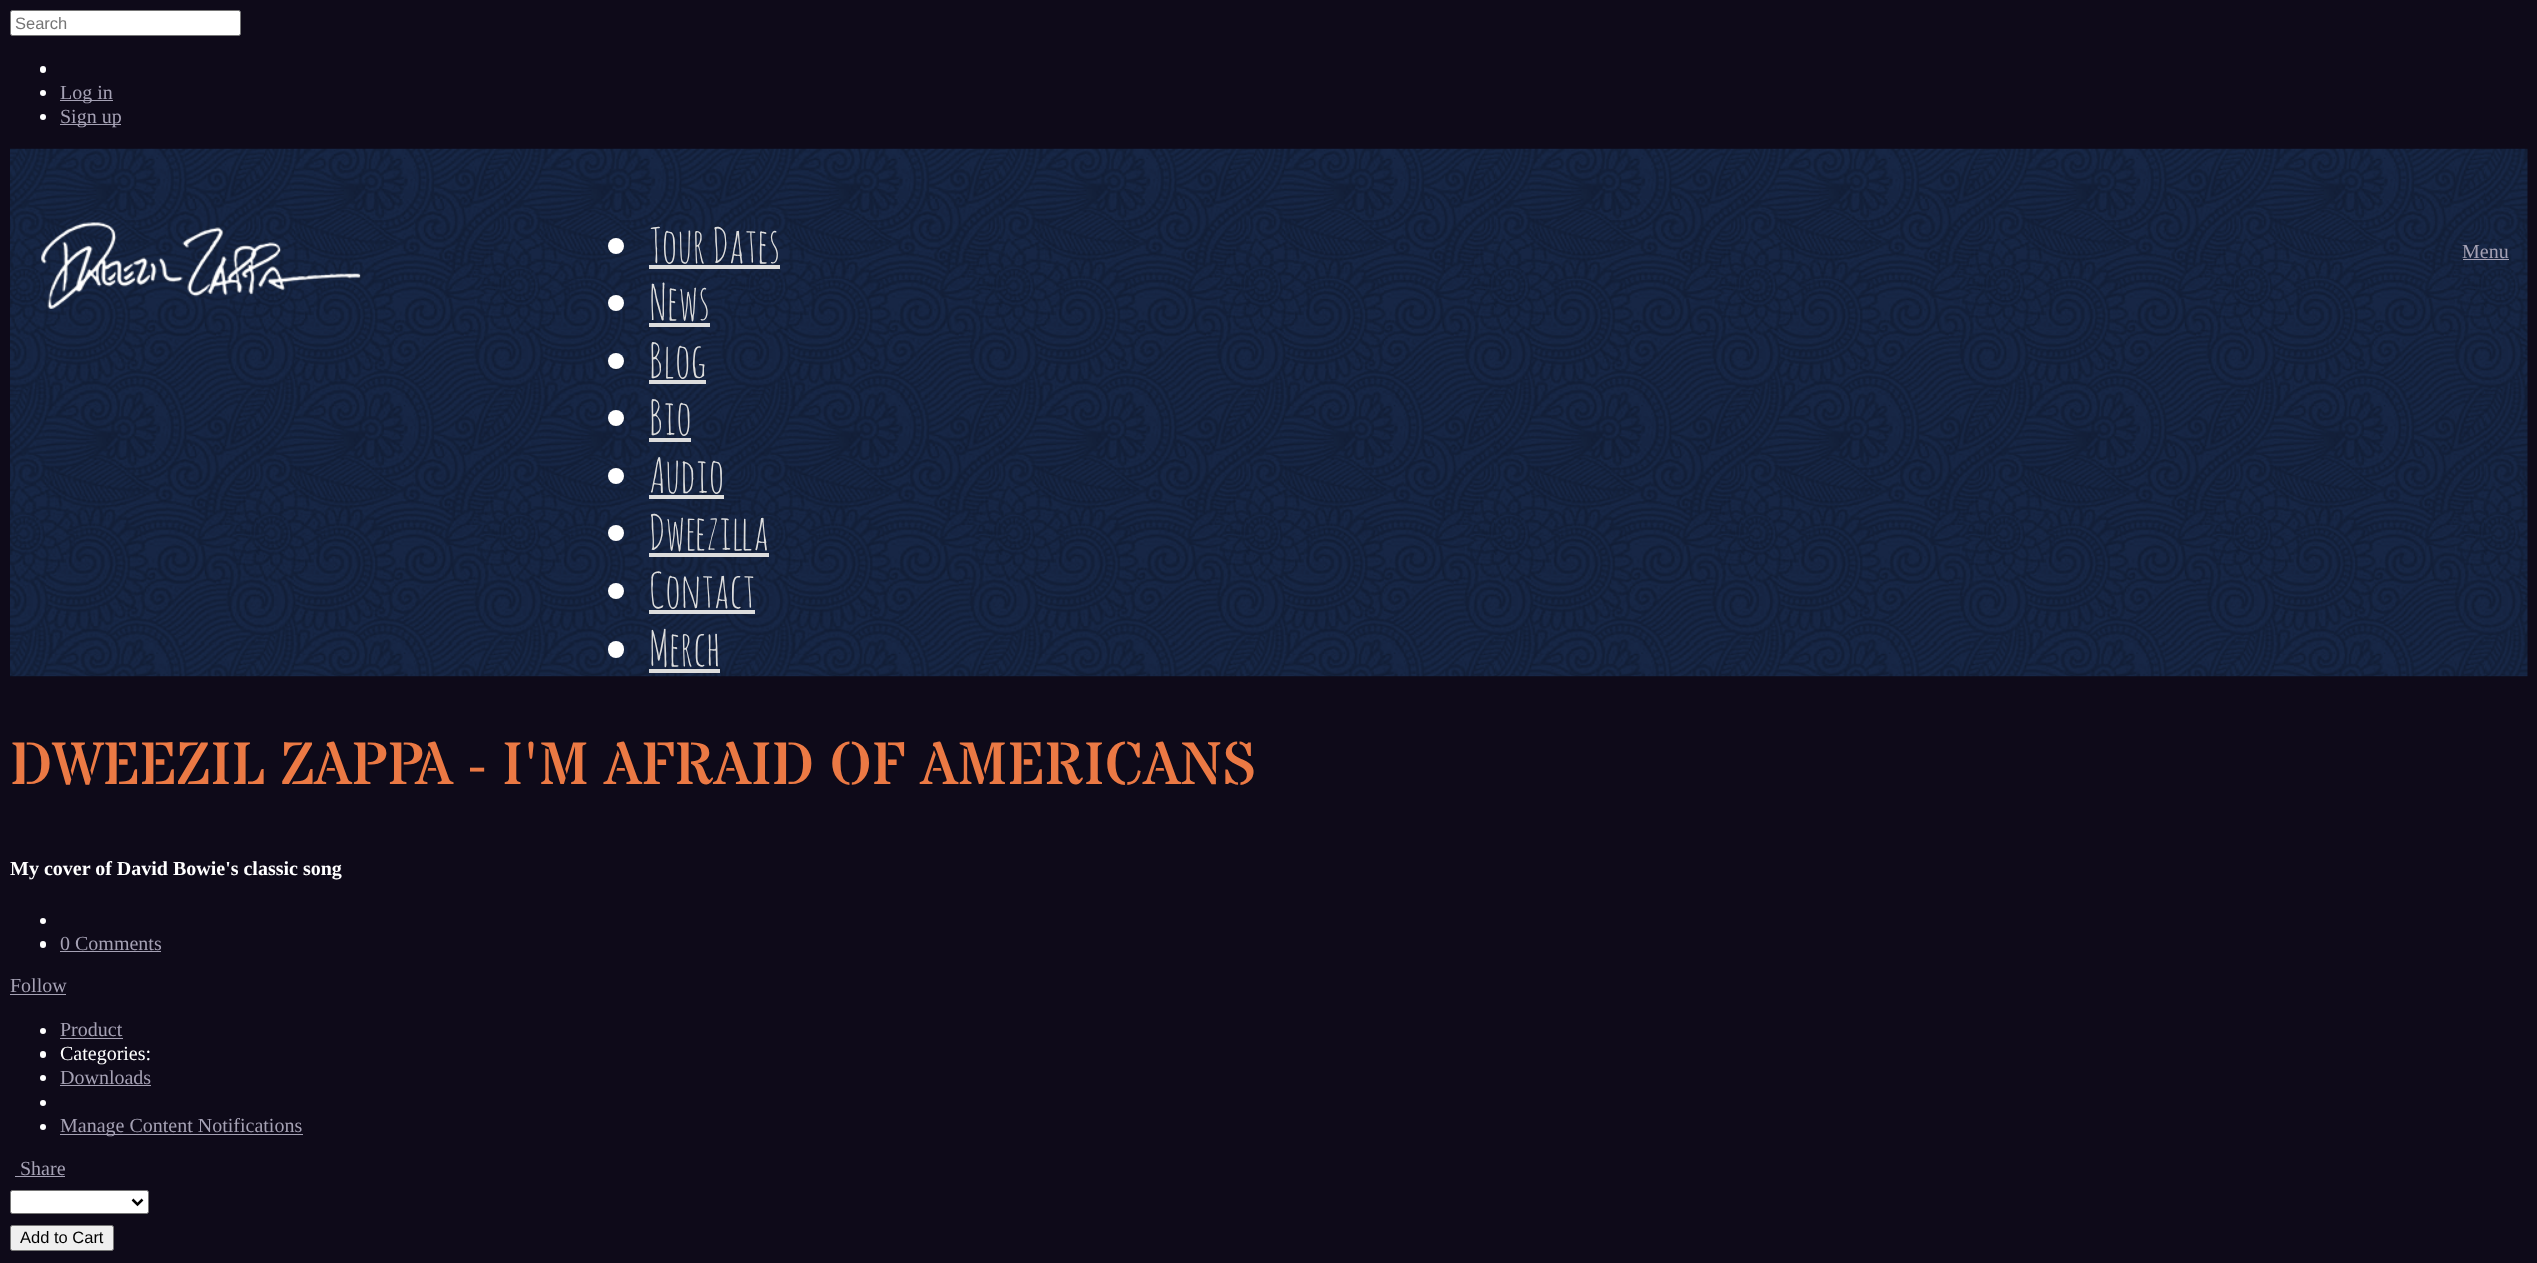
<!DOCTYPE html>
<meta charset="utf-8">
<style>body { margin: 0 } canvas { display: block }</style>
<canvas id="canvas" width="2537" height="1263"></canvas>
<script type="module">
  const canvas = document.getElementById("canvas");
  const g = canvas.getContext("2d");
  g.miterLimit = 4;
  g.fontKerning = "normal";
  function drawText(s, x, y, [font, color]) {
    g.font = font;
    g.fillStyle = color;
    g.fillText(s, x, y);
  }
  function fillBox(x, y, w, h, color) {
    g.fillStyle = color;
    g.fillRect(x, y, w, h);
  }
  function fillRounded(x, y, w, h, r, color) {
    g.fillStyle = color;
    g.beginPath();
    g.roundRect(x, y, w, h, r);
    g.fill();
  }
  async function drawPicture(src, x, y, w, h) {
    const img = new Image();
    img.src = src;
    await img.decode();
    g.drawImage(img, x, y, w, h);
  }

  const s1 = ["16.5px Liberation Sans", "#757575"];
  const s2 = ["20px Liberation Serif", "#A5A1B4"];
  const s3 = ["48px Amatic SC", "#DDDDDD"];
  const s4 = ["60px Stardos Stencil", "#EB7944"];
  const s5 = ["bold 20px Liberation Serif", "#FFFFFF"];
  const s6 = ["20px Liberation Serif", "#FFFFFF"];
  const s7 = ["16.5px Liberation Sans", "#000000"];

  fillBox(0, 0, 2537, 1263, "#0E0A19");
  g.fillStyle = "#FFFFFF";
  g.beginPath();
  g.roundRect(10.5, 10.5, 230, 25, 2);
  g.fill();
  g.strokeStyle = "#767676";
  g.stroke();
  drawText("Search", 15, 29, s1);
  fillRounded(40, 66, 6, 7, 3, "#FFFFFF");
  g.beginPath();
  g.arc(43, 93, 3, 0, Math.PI * 2);
  g.fill();
  fillBox(60, 100, 53, 1, "#A5A1B4");
  drawText("Log in", 60, 99, s2);
  g.fillStyle = "#FFFFFF";
  g.beginPath();
  g.arc(43, 117, 3, 0, Math.PI * 2);
  g.fill();
  fillBox(60, 124, 61, 1, "#A5A1B4");
  drawText("Sign up", 60, 123, s2);
  await drawPicture("pic1.png", 10, 148, 2518, 529);
  await drawPicture("pic2.png", 41, 222, 320, 87);
  g.fillStyle = "#FFFFFF";
  g.beginPath();
  g.arc(616, 246, 8, 0, Math.PI * 2);
  g.fill();
  drawText("Tour Dates", 649, 263, s3);
  fillBox(649, 265, 131, 4, "#DDDDDD");
  g.fillStyle = "#FFFFFF";
  g.beginPath();
  g.arc(616, 303, 8, 0, Math.PI * 2);
  g.fill();
  drawText("News", 649, 320, s3);
  fillBox(649, 323, 61, 4, "#DDDDDD");
  g.fillStyle = "#FFFFFF";
  g.beginPath();
  g.arc(616, 361, 8, 0, Math.PI * 2);
  g.fill();
  drawText("Blog", 649, 378, s3);
  fillBox(649, 380, 57, 4, "#DDDDDD");
  g.fillStyle = "#FFFFFF";
  g.beginPath();
  g.arc(616, 418, 8, 0, Math.PI * 2);
  g.fill();
  drawText("Bio", 649, 435, s3);
  fillBox(649, 438, 42, 4, "#DDDDDD");
  g.fillStyle = "#FFFFFF";
  g.beginPath();
  g.arc(616, 476, 8, 0, Math.PI * 2);
  g.fill();
  drawText("Audio", 649, 493, s3);
  fillBox(649, 495, 75, 4, "#DDDDDD");
  g.fillStyle = "#FFFFFF";
  g.beginPath();
  g.arc(616, 533, 8, 0, Math.PI * 2);
  g.fill();
  drawText("Dweezilla", 649, 550, s3);
  fillBox(649, 553, 120, 4, "#DDDDDD");
  g.fillStyle = "#FFFFFF";
  g.beginPath();
  g.arc(616, 591, 8, 0, Math.PI * 2);
  g.fill();
  drawText("Contact", 649, 608, s3);
  fillBox(649, 610, 106, 4, "#DDDDDD");
  fillRounded(608, 641, 16, 17, 8, "#FFFFFF");
  drawText("Merch", 649, 666, s3);
  fillBox(649, 669, 71, 4, "#DDDDDD");
  drawText("Menu", 2462, 258, s2);
  fillBox(2463, 259, 46, 1, "#A5A1B4");
  drawText("DWEEZIL ZAPPA - I'M AFRAID OF AMERICANS", 10, 784, s4);
  drawText("My cover of David Bowie's classic song", 10, 875, s5);
  g.beginPath();
  g.arc(43, 921, 3, 0, Math.PI * 2);
  g.fill();
  fillRounded(40, 941, 6, 7, 3, "#FFFFFF");
  drawText("0 Comments", 60, 950, s2);
  fillBox(60, 951, 101, 1, "#A5A1B4");
  drawText("Follow", 10, 992, s2);
  fillBox(10, 994, 56, 1, "#A5A1B4");
  g.fillStyle = "#FFFFFF";
  g.beginPath();
  g.arc(43, 1031, 3, 0, Math.PI * 2);
  g.fill();
  drawText("Product", 60, 1036, s2);
  fillBox(60, 1038, 63, 1, "#A5A1B4");
  fillRounded(40, 1051, 6, 7, 3, "#FFFFFF");
  drawText("Categories:", 60, 1060, s6);
  g.beginPath();
  g.arc(43, 1078, 3, 0, Math.PI * 2);
  g.fill();
  drawText("Downloads", 60, 1084, s2);
  fillBox(60, 1085, 91, 1, "#A5A1B4");
  g.fillStyle = "#FFFFFF";
  g.beginPath();
  g.arc(43, 1103, 3, 0, Math.PI * 2);
  g.fill();
  g.beginPath();
  g.arc(43, 1127, 3, 0, Math.PI * 2);
  g.fill();
  fillBox(60, 1134, 243, 1, "#A5A1B4");
  drawText("Manage Content Notifications", 60, 1132, s2);
  drawText("Share", 20, 1175, s2);
  fillBox(15, 1176, 50, 1, "#A5A1B4");
  g.fillStyle = "#FFFFFF";
  g.beginPath();
  g.roundRect(10.5, 1190.5, 138, 23, 2);
  g.fill();
  g.stroke();
  g.beginPath();
  g.moveTo(132.5, 1199.5);
  g.lineTo(137.5, 1204.5);
  g.lineTo(142.5, 1199.5);
  g.strokeStyle = "#000000";
  g.lineWidth = 2.5;
  g.stroke();
  g.fillStyle = "#EFEFEF";
  g.beginPath();
  g.roundRect(10.5, 1225.5, 103, 25, 2);
  g.fill();
  g.strokeStyle = "#767676";
  g.lineWidth = 1;
  g.stroke();
  drawText("Add to Cart", 20, 1243, s7);
</script>
